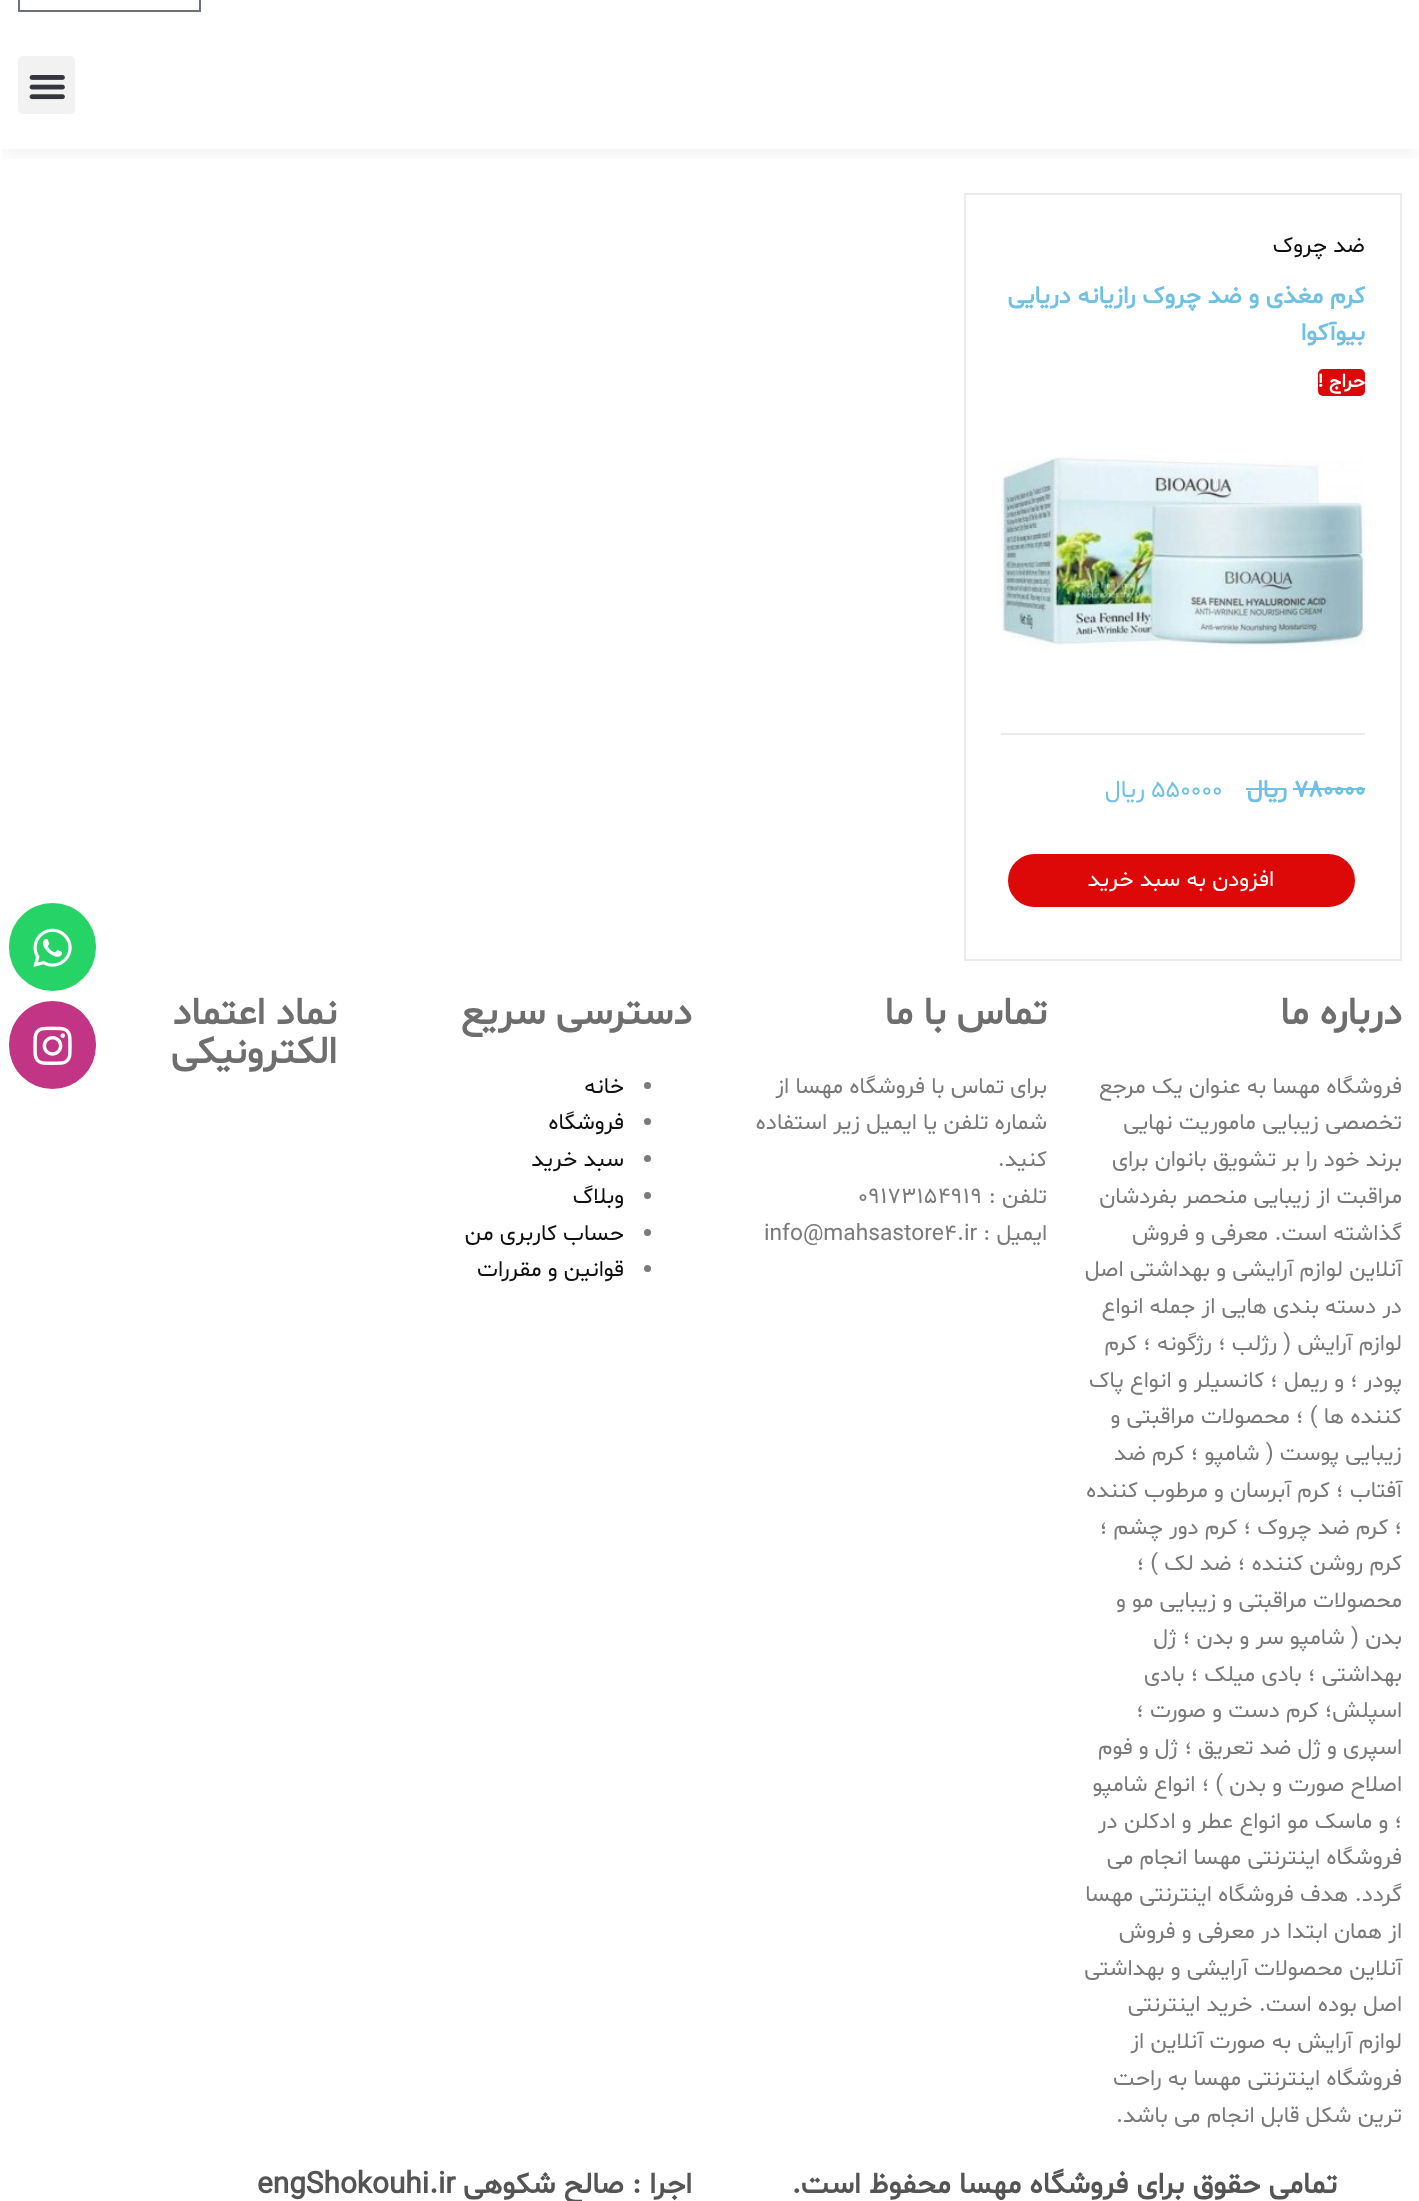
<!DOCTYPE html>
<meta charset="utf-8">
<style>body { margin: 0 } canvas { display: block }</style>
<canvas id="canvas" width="1419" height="2201"></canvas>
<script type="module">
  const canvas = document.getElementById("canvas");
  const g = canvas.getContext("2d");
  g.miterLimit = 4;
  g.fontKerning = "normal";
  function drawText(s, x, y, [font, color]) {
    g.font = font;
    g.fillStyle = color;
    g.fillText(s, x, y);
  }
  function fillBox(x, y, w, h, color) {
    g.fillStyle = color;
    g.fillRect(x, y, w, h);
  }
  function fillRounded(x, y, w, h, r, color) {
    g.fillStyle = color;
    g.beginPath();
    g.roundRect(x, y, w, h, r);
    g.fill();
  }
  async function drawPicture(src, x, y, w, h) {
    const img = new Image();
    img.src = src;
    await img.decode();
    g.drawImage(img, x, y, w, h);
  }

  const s1 = ["22.75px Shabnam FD", "#101010"];
  const s2 = ["bold 24.5px Shabnam FD", "#6EC1E4"];
  const s3 = ["bold 19.5px Shabnam FD", "#FFFFFF"];
  const s4 = ["24.5px Shabnam FD", "#6EC1E4"];
  const s5 = ["22.75px Shabnam FD", "#FFFFFF"];
  const s6 = ["bold 38.5px Shabnam FD", "#6E6E6E"];
  const s7 = ["22.75px Shabnam FD", "#7A7A7A"];
  const s8 = ["bold 29.75px Shabnam FD", "#555454"];

  fillBox(0, 0, 1419, 2201, "#FFFFFF");
  g.save();
  g.beginPath();
  g.rect(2, 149, 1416, 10);
  g.clip();
  g.fillStyle = "rgba(0, 0, 0, 0.06)";
  g.filter = "blur(10.5px)";
  g.beginPath();
  g.rect(2, -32, 1416, 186);
  g.fill();
  g.filter = "none";
  g.restore();
  g.strokeStyle = "#69727D";
  g.lineWidth = 2;
  g.strokeRect(19, -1, 181, 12);
  fillRounded(18, 56, 57, 58, 5, "#F2F2F2");
  await drawPicture("pic1.png", 29, 75, 36, 25);
  g.strokeStyle = "#EBEBEB";
  g.strokeRect(965, 194, 436, 766);
  g.direction = "rtl";
  drawText("ضد چروک", 1365, 252, s1);
  drawText("کرم مغذی و ضد چروک رازیانه دریایی", 1365, 303, s2);
  drawText("بیوآکوا", 1365, 340, s2);
  fillBox(1001, 733, 364, 2, "#EBEBEB");
  fillRounded(1318, 369, 47, 27, 5, "#DD0808");
  drawText("حراج !", 1365, 387, s3);
  await drawPicture("pic2.png", 1001, 456, 364, 193);
  g.direction = "ltr";
  drawText("780000", 1294, 797, s2);
  fillBox(1293, 788, 72, 2, "#6EC1E4");
  g.direction = "rtl";
  drawText("ریال", 1287, 797, s2);
  fillBox(1246, 788, 40, 2, "#6EC1E4");
  g.direction = "ltr";
  drawText("550000", 1151, 797, s4);
  g.direction = "rtl";
  drawText("ریال", 1145, 797, s4);
  fillRounded(1008, 854, 347, 53, 26.5, "#DD0808");
  drawText("افزودن به سبد خرید", 1274, 886, s5);
  drawText("درباره ما", 1402, 1024, s6);
  drawText("فروشگاه مهسا به عنوان یک مرجع", 1402, 1093, s7);
  drawText("تخصصی زیبایی ماموریت نهایی", 1402, 1129, s7);
  drawText("برند خود را بر تشویق بانوان برای", 1402, 1166, s7);
  drawText("مراقبت از زیبایی منحصر بفردشان", 1402, 1203, s7);
  drawText("گذاشته است. معرفی و فروش", 1402, 1240, s7);
  drawText("آنلاین لوازم آرایشی و بهداشتی اصل", 1402, 1276, s7);
  drawText("در دسته بندی هایی از جمله انواع", 1402, 1313, s7);
  drawText("لوازم آرایش ( رژلب ؛ رژگونه ؛ کرم", 1402, 1350, s7);
  drawText("پودر ؛ و ریمل ؛ کانسیلر و انواع پاک", 1402, 1387, s7);
  drawText("کننده ها ) ؛ محصولات مراقبتی و", 1402, 1423, s7);
  drawText("زیبایی پوست ( شامپو ؛ کرم ضد", 1402, 1460, s7);
  drawText("آفتاب ؛ کرم آبرسان و مرطوب کننده", 1402, 1497, s7);
  drawText("؛ کرم ضد چروک ؛ کرم دور چشم ؛", 1402, 1534, s7);
  drawText("کرم روشن کننده ؛ ضد لک ) ؛", 1402, 1570, s7);
  drawText("محصولات مراقبتی و زیبایی مو و", 1402, 1607, s7);
  drawText("بدن ( شامپو سر و بدن ؛ ژل", 1402, 1644, s7);
  drawText("بهداشتی ؛ بادی میلک ؛ بادی", 1402, 1681, s7);
  drawText("اسپلش؛ کرم دست و صورت ؛", 1402, 1717, s7);
  drawText("اسپری و ژل ضد تعریق ؛ ژل و فوم", 1402, 1754, s7);
  drawText("اصلاح صورت و بدن ) ؛ انواع شامپو", 1402, 1791, s7);
  drawText("؛ و ماسک مو انواع عطر و ادکلن در", 1402, 1828, s7);
  drawText("فروشگاه اینترنتی مهسا انجام می", 1402, 1864, s7);
  drawText("گردد. هدف فروشگاه اینترنتی مهسا", 1402, 1901, s7);
  drawText("از همان ابتدا در معرفی و فروش", 1402, 1938, s7);
  drawText("آنلاین محصولات آرایشی و بهداشتی", 1402, 1975, s7);
  drawText("اصل بوده است. خرید اینترنتی", 1402, 2011, s7);
  drawText("لوازم آرایش به صورت آنلاین از", 1402, 2048, s7);
  drawText("فروشگاه اینترنتی مهسا به راحت", 1402, 2085, s7);
  drawText("ترین شکل قابل انجام می باشد.", 1402, 2122, s7);
  drawText("تماس با ما", 1047, 1024, s6);
  drawText("برای تماس با فروشگاه مهسا از", 1047, 1093, s7);
  drawText("شماره تلفن یا ایمیل زیر استفاده", 1047, 1129, s7);
  drawText("کنید.", 1047, 1166, s7);
  drawText("تلفن :", 1047, 1203, s7);
  g.direction = "ltr";
  drawText("09173154919", 858, 1203, s7);
  g.direction = "rtl";
  drawText("ایمیل :", 1047, 1240, s7);
  g.direction = "ltr";
  drawText("info@mahsastore4.ir", 764, 1240, s7);
  g.direction = "rtl";
  drawText("دسترسی سریع", 692, 1024, s6);
  g.fillStyle = "#7A7A7A";
  g.beginPath();
  g.arc(647.5, 1085.5, 3.5, 0, Math.PI * 2);
  g.fill();
  drawText("خانه", 624, 1093, s1);
  g.fillStyle = "#7A7A7A";
  g.beginPath();
  g.arc(647.5, 1121.5, 3.5, 0, Math.PI * 2);
  g.fill();
  drawText("فروشگاه", 624, 1129, s1);
  g.fillStyle = "#7A7A7A";
  g.beginPath();
  g.arc(647.5, 1158.5, 3.5, 0, Math.PI * 2);
  g.fill();
  drawText("سبد خرید", 624, 1166, s1);
  g.fillStyle = "#7A7A7A";
  g.beginPath();
  g.arc(647.5, 1195.5, 3.5, 0, Math.PI * 2);
  g.fill();
  drawText("وبلاگ", 624, 1203, s1);
  g.fillStyle = "#7A7A7A";
  g.beginPath();
  g.arc(647.5, 1232.5, 3.5, 0, Math.PI * 2);
  g.fill();
  drawText("حساب کاربری من", 624, 1240, s1);
  g.fillStyle = "#7A7A7A";
  g.beginPath();
  g.arc(647.5, 1268.5, 3.5, 0, Math.PI * 2);
  g.fill();
  drawText("قوانین و مقررات", 624, 1276, s1);
  drawText("نماد اعتماد", 337, 1024, s6);
  drawText("الکترونیکی", 337, 1063, s6);
  fillRounded(9, 903, 87, 88, 43.5, "#25D366");
  await drawPicture("pic3.png", 33, 928, 39, 39);
  fillRounded(9, 1001, 87, 88, 43.5, "#C13584");
  await drawPicture("pic4.png", 33, 1026, 39, 39);
  drawText("تمامی حقوق برای فروشگاه مهسا محفوظ است.", 1337, 2193, s8);
  drawText("اجرا : صالح شکوهی", 692, 2193, s8);
  g.direction = "ltr";
  drawText("engShokouhi.ir", 257, 2193, s8);
</script>
